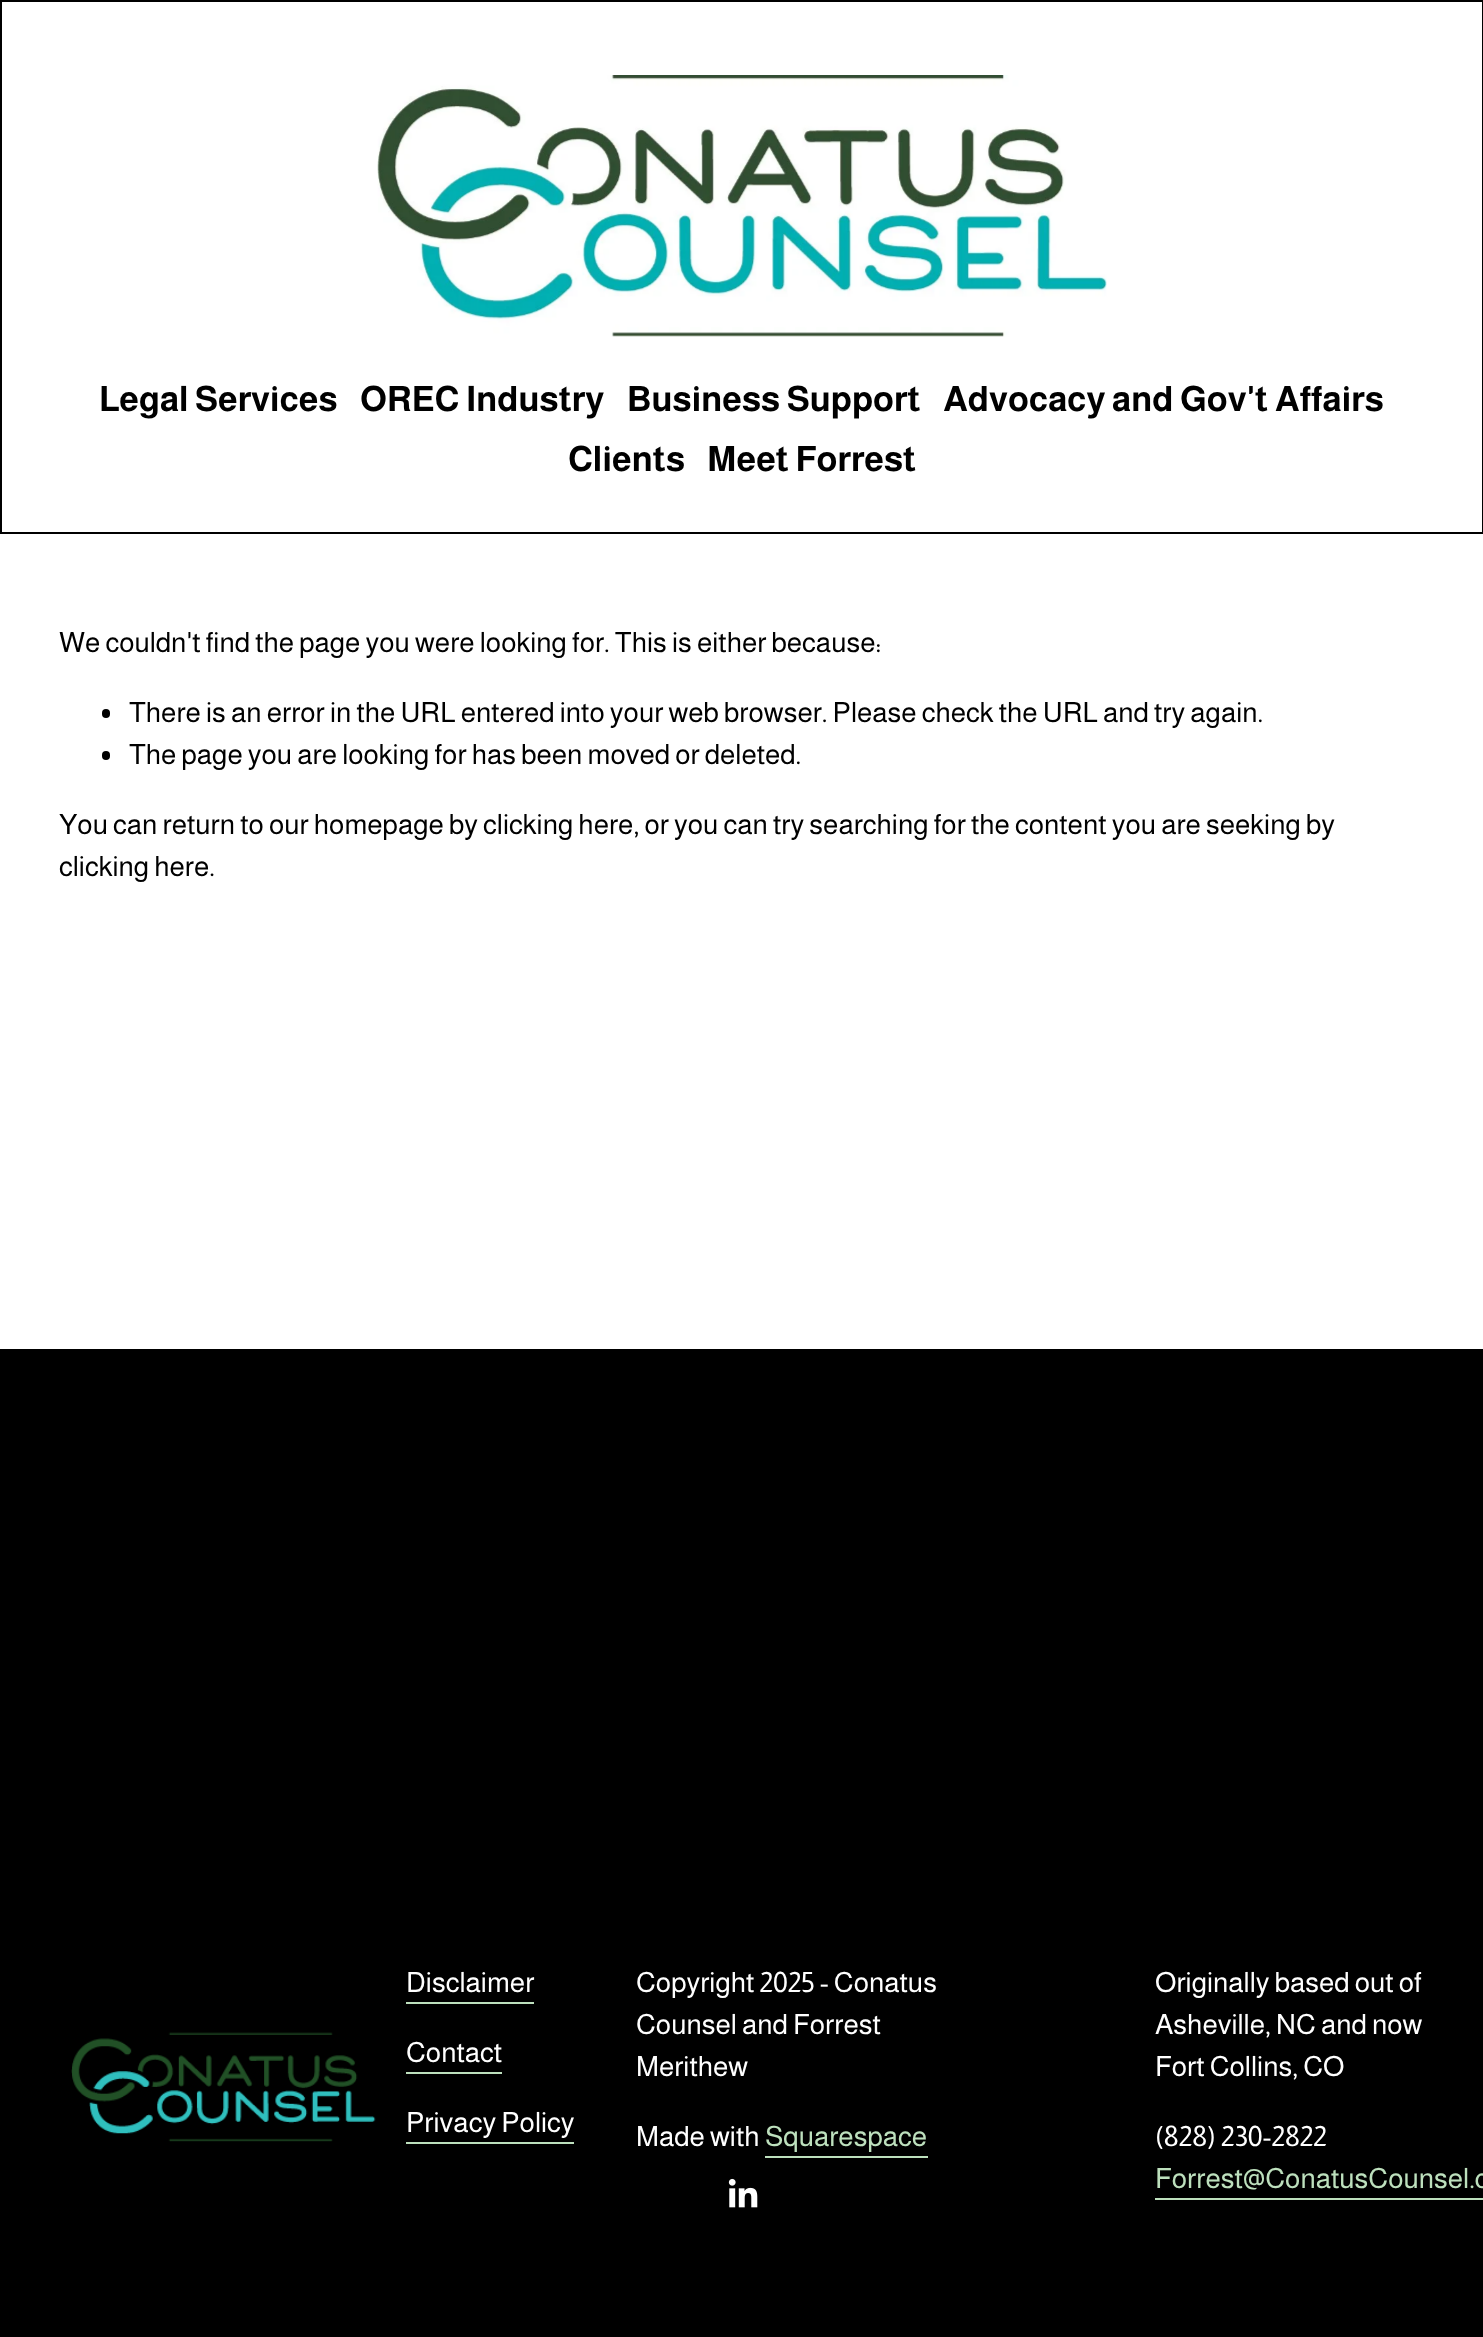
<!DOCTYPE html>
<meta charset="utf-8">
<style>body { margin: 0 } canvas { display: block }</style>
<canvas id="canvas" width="1483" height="2337"></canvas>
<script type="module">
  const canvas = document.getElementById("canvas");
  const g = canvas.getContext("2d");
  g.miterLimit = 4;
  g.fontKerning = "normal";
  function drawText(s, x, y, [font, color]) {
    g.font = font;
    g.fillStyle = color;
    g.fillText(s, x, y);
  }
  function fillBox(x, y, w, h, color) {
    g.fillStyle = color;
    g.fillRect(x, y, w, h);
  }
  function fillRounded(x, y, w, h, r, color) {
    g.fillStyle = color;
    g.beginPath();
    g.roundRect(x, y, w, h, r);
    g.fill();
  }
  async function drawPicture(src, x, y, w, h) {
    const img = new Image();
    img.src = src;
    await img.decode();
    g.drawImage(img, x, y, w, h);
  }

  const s1 = ["bold 35.1px Almarai", "#000000"];
  const s2 = ["28px Almarai", "#000000"];
  const s3 = ["28px Almarai", "#FFFFFF"];
  const s4 = ["28px Almarai", "#BDE0BD"];

  fillBox(0, 0, 1483, 2337, "#FFFFFF");
  g.strokeStyle = "#000000";
  g.lineWidth = 2;
  g.strokeRect(1, 1, 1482, 532);
  await drawPicture("pic1.png", 377, 75, 730, 262);
  drawText("Legal Services", 99, 411, s1);
  drawText("OREC Industry", 360, 411, s1);
  drawText("Business Support", 627, 411, s1);
  drawText("Advocacy and Gov't Affairs", 943, 411, s1);
  drawText("Clients", 568, 471, s1);
  drawText("Meet Forrest", 707, 471, s1);
  drawText("We couldn't find the page you were looking for. This is either because:", 59, 652, s2);
  fillRounded(102, 709, 8, 9, 4, "#000000");
  drawText("There is an error in the URL entered into your web browser. Please check the URL and try again.", 129, 722, s2);
  fillRounded(102, 751, 8, 9, 4, "#000000");
  drawText("The page you are looking for has been moved or deleted.", 129, 764, s2);
  drawText("You can return to our homepage by clicking here, or you can try searching for the content you are seeking by", 59, 834, s2);
  drawText("clicking here.", 59, 876, s2);
  fillBox(0, 1349, 1483, 988, "#000000");
  await drawPicture("pic2.png", 71, 2032, 305, 110);
  fillBox(406, 2002, 128, 2, "#BDE0BD");
  drawText("Disclaimer", 406, 1992, s3);
  fillBox(406, 2072, 96, 2, "#BDE0BD");
  drawText("Contact", 406, 2062, s3);
  fillBox(406, 2142, 168, 2, "#BDE0BD");
  drawText("Privacy Policy", 406, 2132, s3);
  drawText("Copyright 2025 - Conatus", 636, 1992, s3);
  drawText("Counsel and Forrest", 636, 2034, s3);
  drawText("Merithew", 636, 2076, s3);
  drawText("Made with", 636, 2146, s3);
  fillBox(765, 2156, 163, 2, "#BDE0BD");
  drawText("Squarespace", 765, 2146, s4);
  drawText("Originally based out of", 1155, 1992, s3);
  drawText("Asheville, NC and now", 1155, 2034, s3);
  drawText("Fort Collins, CO", 1155, 2076, s3);
  drawText("(828) 230-2822", 1155, 2146, s3);
  fillBox(1155, 2198, 328, 2, "#BDE0BD");
  drawText("Forrest@ConatusCounsel.c", 1155, 2188, s4);
  await drawPicture("pic3.png", 728, 2178, 30, 30);
</script>
